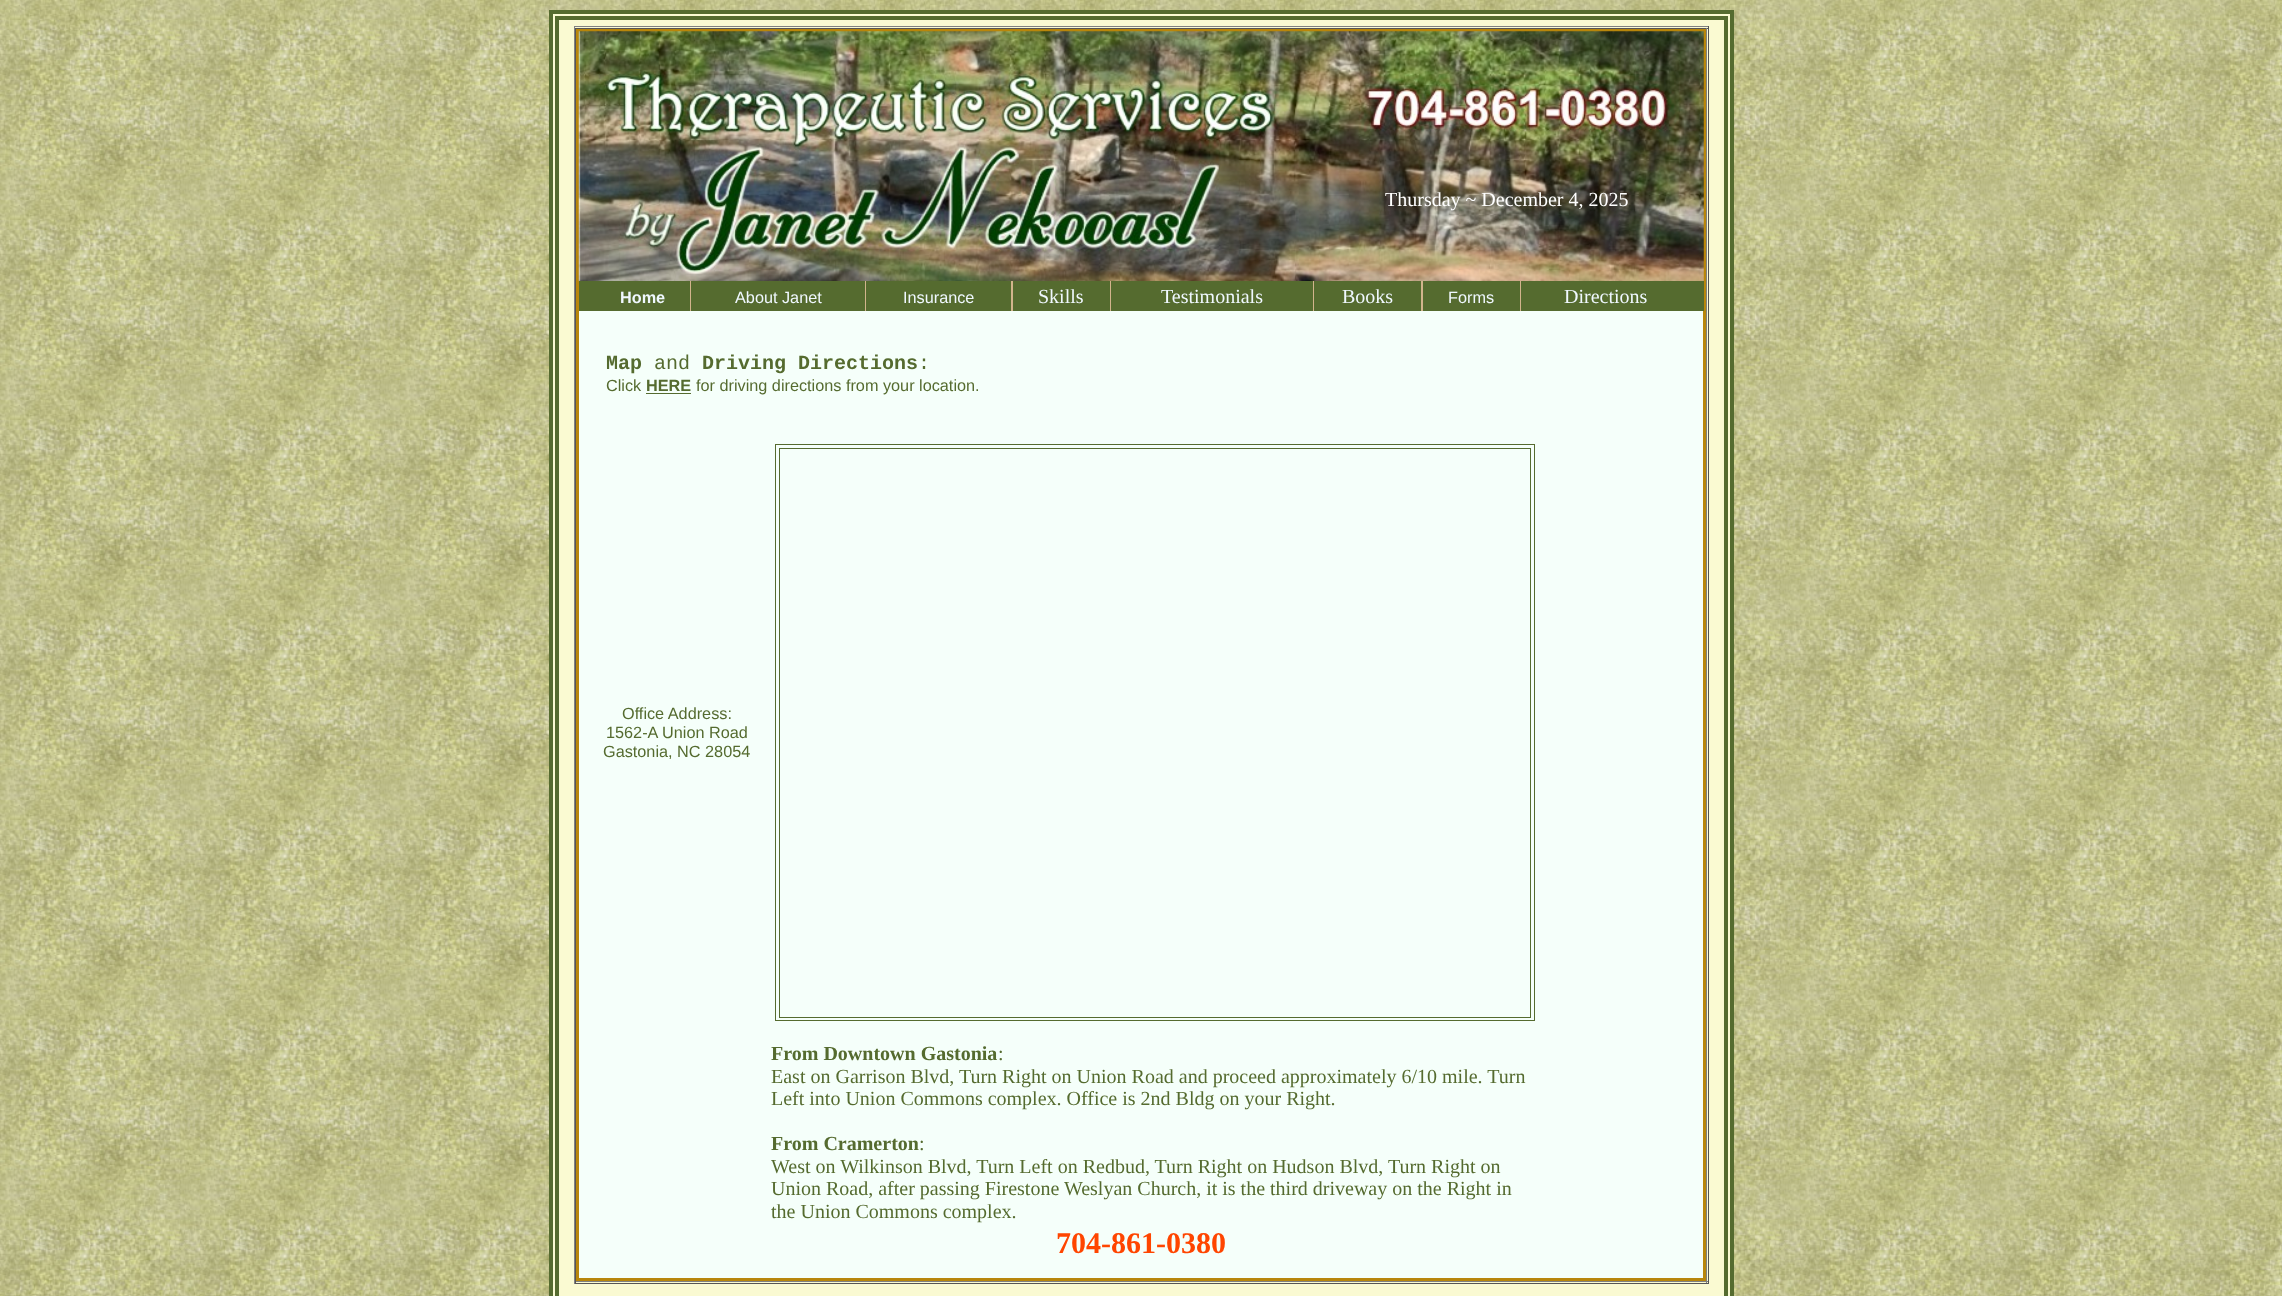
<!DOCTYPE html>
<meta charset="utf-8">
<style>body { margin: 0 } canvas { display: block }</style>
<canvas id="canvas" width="2282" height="1296"></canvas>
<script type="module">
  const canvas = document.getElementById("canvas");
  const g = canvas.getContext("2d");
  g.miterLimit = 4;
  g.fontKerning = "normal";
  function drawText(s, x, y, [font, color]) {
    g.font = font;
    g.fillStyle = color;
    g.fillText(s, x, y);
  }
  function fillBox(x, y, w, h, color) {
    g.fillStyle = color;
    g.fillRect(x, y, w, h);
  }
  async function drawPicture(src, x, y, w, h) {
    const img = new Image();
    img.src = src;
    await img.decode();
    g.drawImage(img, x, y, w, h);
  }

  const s1 = ["20px Liberation Serif", "#FFFFFF"];
  const s2 = ["20px Liberation Serif", "#F0F8FF"];
  const s3 = ["bold 16.25px Liberation Sans", "#F0F8FF"];
  const s4 = ["16.25px Liberation Sans", "#F0F8FF"];
  const s5 = ["bold 20px Liberation Mono", "#556B2F"];
  const s6 = ["20px Liberation Mono", "#556B2F"];
  const s7 = ["16.25px Liberation Sans", "#556B2F"];
  const s8 = ["bold 16.25px Liberation Sans", "#556B2F"];
  const s9 = ["bold 20px Liberation Serif", "#556B2F"];
  const s10 = ["20px Liberation Serif", "#556B2F"];
  const s11 = ["bold 30px Liberation Serif", "#FF4500"];

  fillBox(0, 0, 2282, 1296, "#FFFFFF");
  await drawPicture("pic1.png", 0, 0, 2282, 1296);
  g.fillStyle = "#FAFAD2";
  g.beginPath();
  g.rect(551, 12, 1181, 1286);
  g.fill();
  g.strokeStyle = "#556B2F";
  g.lineWidth = 4;
  g.stroke();
  g.strokeRect(557, 18, 1169, 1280);
  fillBox(574, 26, 1135, 1, "#808080");
  fillBox(1708, 26, 1, 1258, "#555555");
  fillBox(574, 1283, 1135, 1, "#555555");
  fillBox(574, 26, 1, 1258, "#808080");
  fillBox(575, 28, 1133, 1, "#555555");
  fillBox(1706, 28, 1, 1255, "#808080");
  fillBox(575, 1281, 1133, 1, "#808080");
  fillBox(575, 28, 1, 1255, "#555555");
  fillBox(579, 311, 1124, 967, "#F5FFFA");
  g.strokeStyle = "#B8860B";
  g.lineWidth = 3;
  g.strokeRect(577.5, 30.5, 1127, 1249);
  await drawPicture("pic2.png", 578, 31, 1126, 251);
  drawText("Thursday ~ December 4, 2025", 1385, 206, s1);
  fillBox(690, 281, 831, 30, "#D2B48C");
  fillBox(579, 281, 111, 30, "#556B2F");
  fillBox(1013, 281, 97, 30, "#556B2F");
  drawText("Skills", 1038, 303, s2);
  fillBox(1111, 281, 202, 30, "#556B2F");
  drawText("Testimonials", 1161, 303, s2);
  fillBox(1314, 281, 107, 30, "#556B2F");
  drawText("Books", 1342, 303, s2);
  fillBox(1521, 281, 183, 30, "#556B2F");
  drawText("Directions", 1564, 303, s2);
  drawText("Home", 620, 303, s3);
  fillBox(691, 281, 174, 30, "#556B2F");
  drawText("About Janet", 735, 303, s4);
  fillBox(866, 281, 145, 30, "#556B2F");
  drawText("Insurance", 903, 303, s4);
  fillBox(1423, 281, 97, 30, "#556B2F");
  drawText("Forms", 1448, 303, s4);
  drawText("Map", 606, 369, s5);
  drawText("and", 654, 369, s6);
  drawText("Driving Directions", 702, 369, s5);
  drawText(":", 918, 369, s6);
  drawText("Click", 606, 391, s7);
  drawText("HERE", 646, 391, s8);
  fillBox(646, 393, 45, 1, "#556B2F");
  drawText("for driving directions from your location.", 696, 391, s7);
  drawText("Office Address:", 622, 719, s7);
  drawText("1562-A Union Road", 606, 738, s7);
  drawText("Gastonia, NC 28054", 603, 757, s7);
  g.strokeStyle = "#556B2F";
  g.lineWidth = 1;
  g.strokeRect(775.5, 444.5, 759, 576);
  g.strokeRect(779.5, 448.5, 751, 569);
  drawText("From Downtown Gastonia", 771, 1060, s9);
  drawText(":", 998, 1060, s10);
  drawText("East on Garrison Blvd, Turn Right on Union Road and proceed approximately 6/10 mile. Turn", 771, 1083, s10);
  drawText("Left into Union Commons complex. Office is 2nd Bldg on your Right.", 771, 1105, s10);
  drawText("From Cramerton", 771, 1150, s9);
  drawText(":", 919, 1150, s10);
  drawText("West on Wilkinson Blvd, Turn Left on Redbud, Turn Right on Hudson Blvd, Turn Right on", 771, 1173, s10);
  drawText("Union Road, after passing Firestone Weslyan Church, it is the third driveway on the Right in", 771, 1195, s10);
  drawText("the Union Commons complex.", 771, 1218, s10);
  drawText("704-861-0380", 1056, 1253, s11);
</script>
